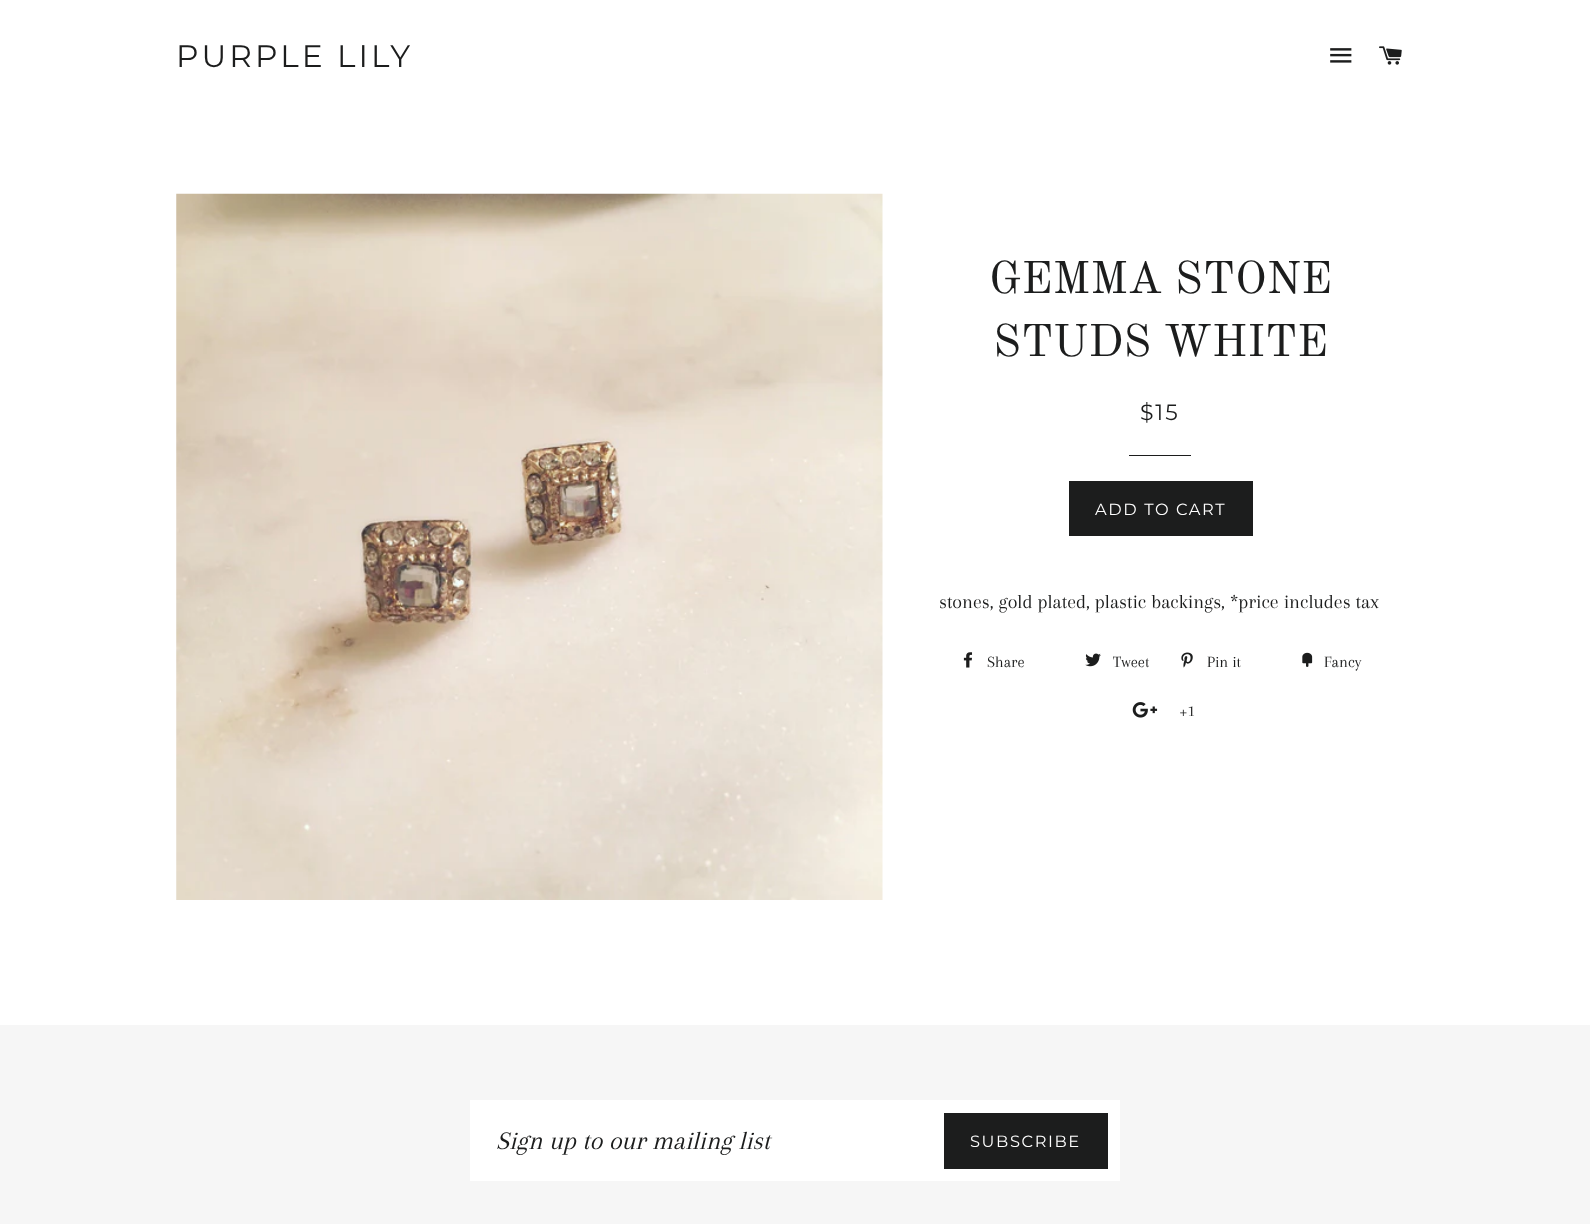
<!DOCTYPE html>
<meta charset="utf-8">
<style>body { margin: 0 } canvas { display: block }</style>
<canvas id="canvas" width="1590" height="1224"></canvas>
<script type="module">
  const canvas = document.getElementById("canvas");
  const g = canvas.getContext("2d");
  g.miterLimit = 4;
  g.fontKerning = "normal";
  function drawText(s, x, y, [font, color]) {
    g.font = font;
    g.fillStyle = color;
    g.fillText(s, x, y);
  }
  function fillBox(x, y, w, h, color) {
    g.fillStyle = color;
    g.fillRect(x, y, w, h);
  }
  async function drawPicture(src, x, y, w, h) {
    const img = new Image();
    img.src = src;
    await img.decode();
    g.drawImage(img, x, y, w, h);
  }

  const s1 = ["100 31.25px Montserrat", "#1C1D1D"];
  const s2 = ["45px Old Standard TT", "#1C1D1D"];
  const s3 = ["100 22px Montserrat", "#1C1D1D"];
  const s4 = ["100 16.25px Montserrat", "#FFFFFF"];
  const s5 = ["20px Arapey", "#1C1D1D"];
  const s6 = ["16.25px Arapey", "#1C1D1D"];
  const s7 = ["italic 26.25px Arapey", "#1C1D1D"];

  fillBox(0, 0, 1590, 1224, "#FFFFFF");
  g.letterSpacing = "3.1px";
  drawText("PURPLE LILY", 176, 67, s1);
  await drawPicture("pic1.png", 1330, 48, 22, 15);
  await drawPicture("pic2.png", 1379, 46, 23, 19);
  await drawPicture("pic3.png", 176, 193, 707, 707);
  g.letterSpacing = "0px";
  drawText("GEMMA STONE", 989, 293, s2);
  drawText("STUDS WHITE", 993, 356, s2);
  g.letterSpacing = "2px";
  drawText("$15", 1140, 420, s3);
  fillBox(1129, 455, 62, 1, "#1C1D1D");
  fillBox(1069, 481, 184, 55, "#1C1D1D");
  g.letterSpacing = "1.6px";
  drawText("ADD TO CART", 1095, 515, s4);
  g.letterSpacing = "0px";
  drawText("stones, gold plated, plastic backings, *price includes tax", 939, 608, s5);
  await drawPicture("pic4.png", 963, 652, 10, 16);
  drawText("Share", 987, 667, s6);
  await drawPicture("pic5.png", 1085, 653, 16, 14);
  drawText("Tweet", 1113, 667, s6);
  await drawPicture("pic6.png", 1181, 652, 12, 16);
  drawText("Pin it", 1207, 667, s6);
  await drawPicture("pic7.png", 1302, 652, 11, 15);
  drawText("Fancy", 1324, 667, s6);
  await drawPicture("pic8.png", 1132, 702, 26, 16);
  drawText("+1", 1179, 716, s6);
  fillBox(0, 1025, 1590, 199, "#F6F6F6");
  fillBox(470, 1100, 650, 81, "#FFFFFF");
  drawText("Sign up to our mailing list", 496, 1149, s7);
  fillBox(944, 1113, 164, 56, "#1C1D1D");
  g.letterSpacing = "1.6px";
  drawText("SUBSCRIBE", 970, 1147, s4);
</script>
